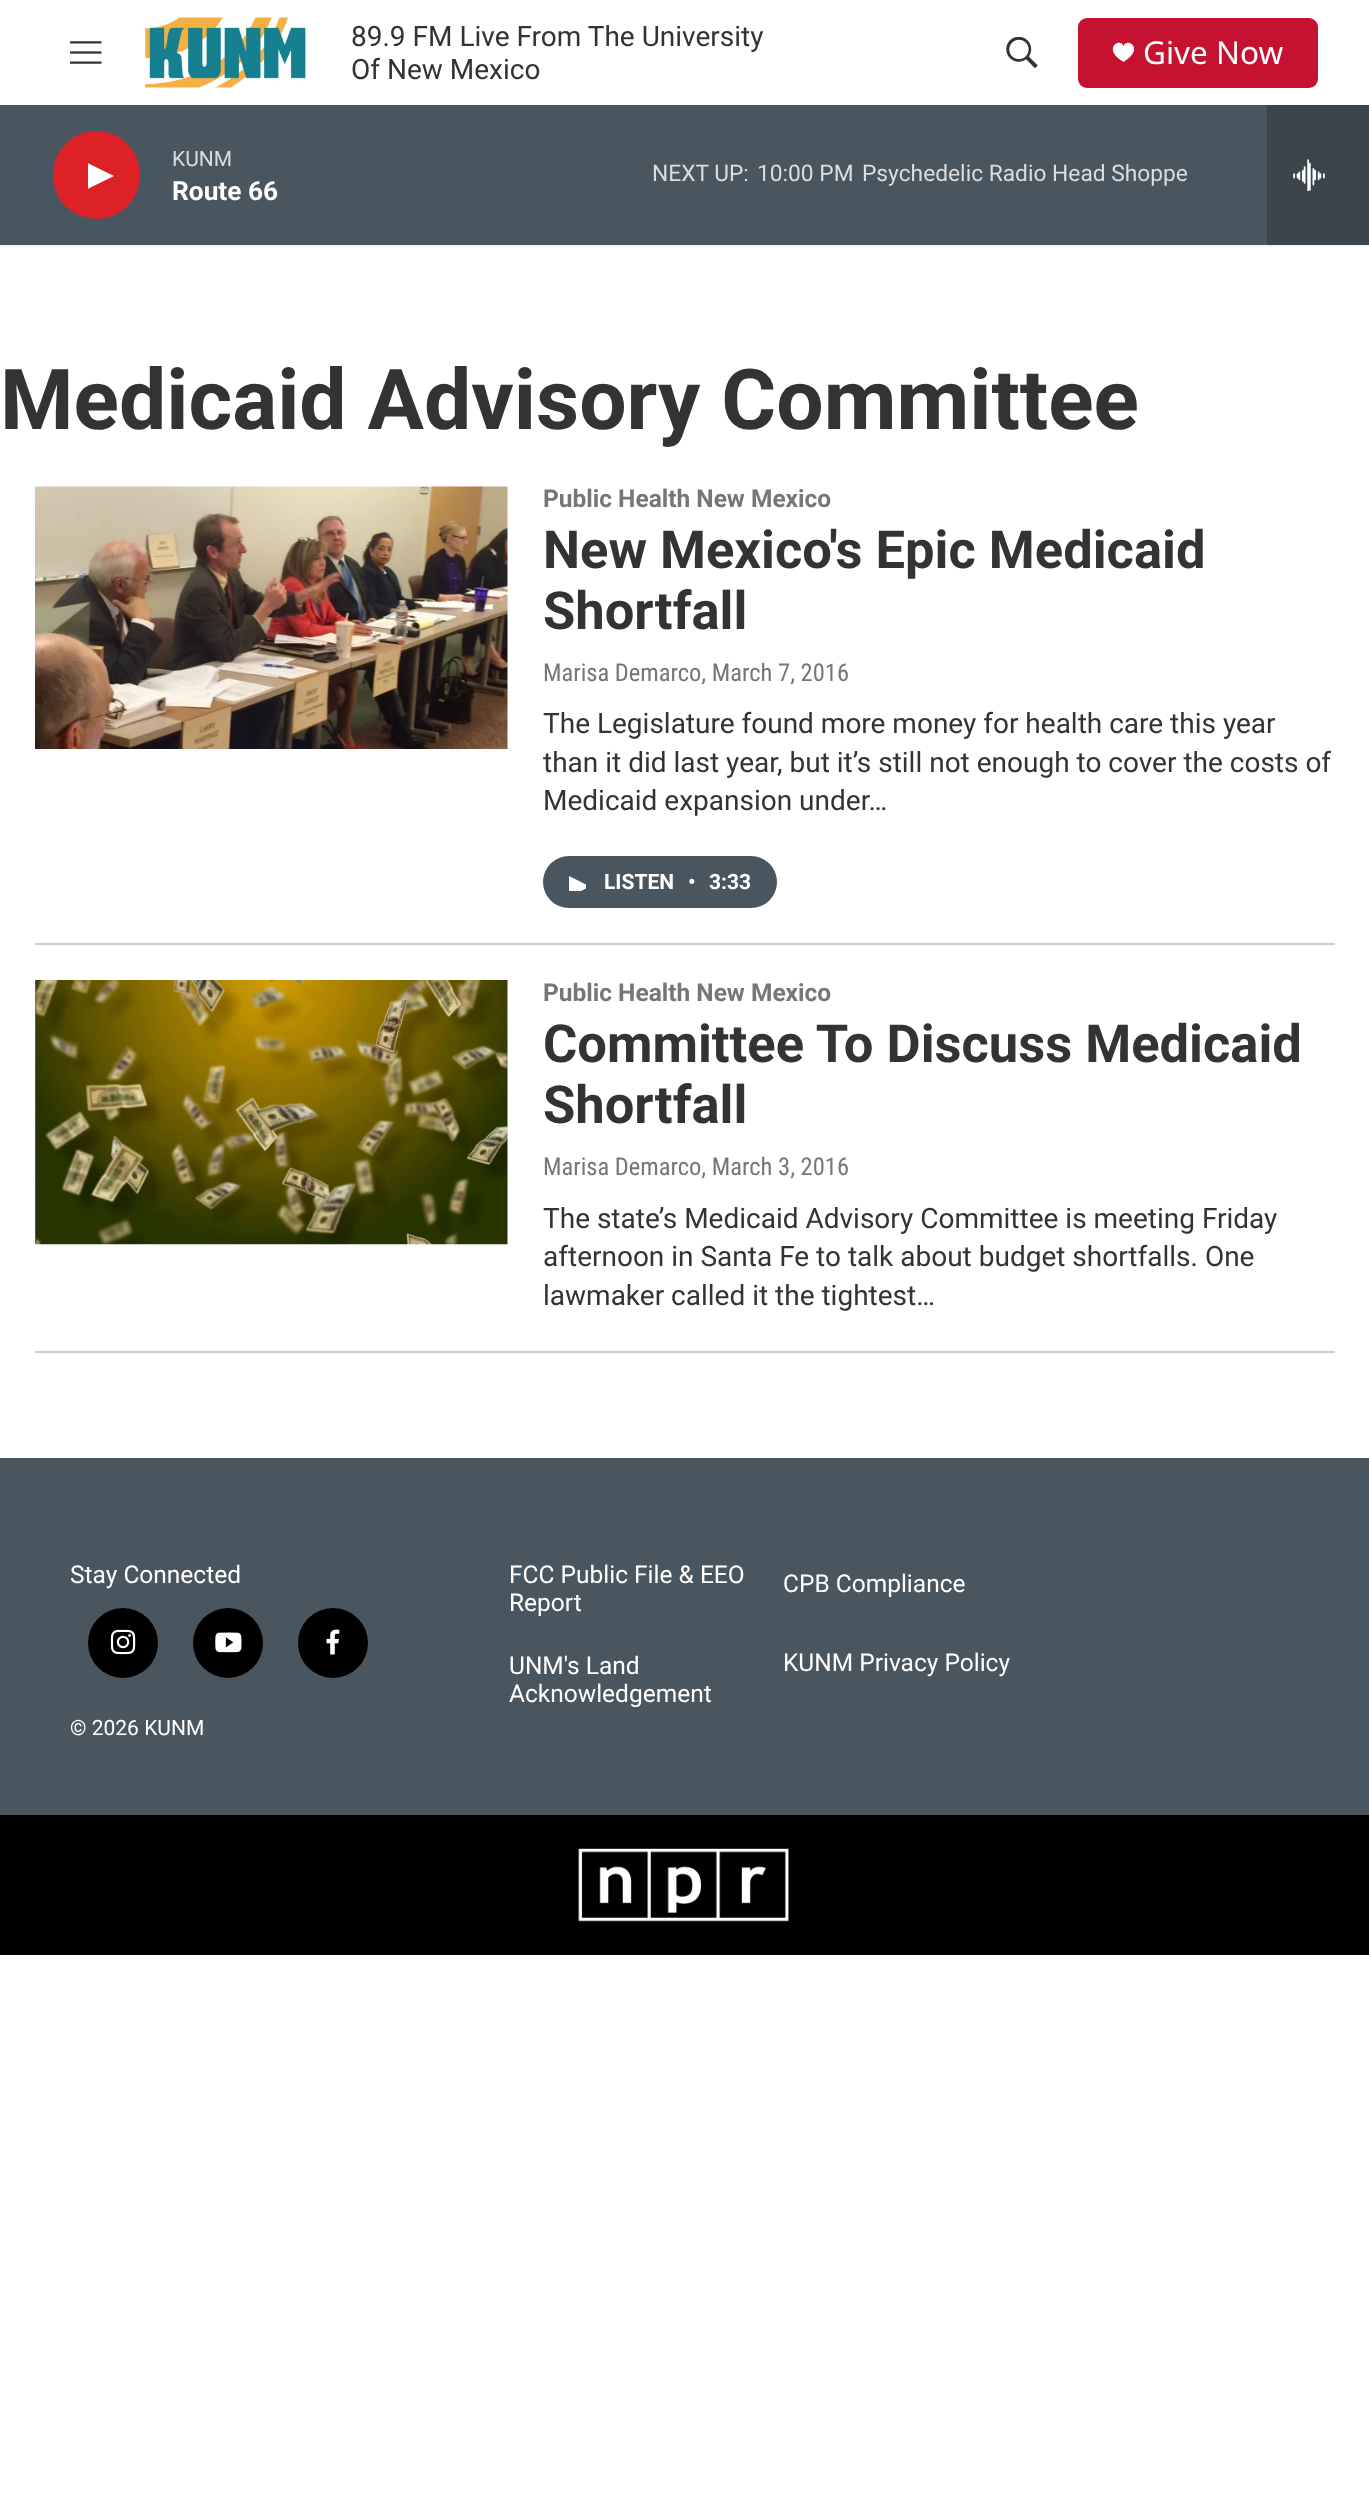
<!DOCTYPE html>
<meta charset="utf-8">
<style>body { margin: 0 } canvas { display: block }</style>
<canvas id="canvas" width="1369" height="2503"></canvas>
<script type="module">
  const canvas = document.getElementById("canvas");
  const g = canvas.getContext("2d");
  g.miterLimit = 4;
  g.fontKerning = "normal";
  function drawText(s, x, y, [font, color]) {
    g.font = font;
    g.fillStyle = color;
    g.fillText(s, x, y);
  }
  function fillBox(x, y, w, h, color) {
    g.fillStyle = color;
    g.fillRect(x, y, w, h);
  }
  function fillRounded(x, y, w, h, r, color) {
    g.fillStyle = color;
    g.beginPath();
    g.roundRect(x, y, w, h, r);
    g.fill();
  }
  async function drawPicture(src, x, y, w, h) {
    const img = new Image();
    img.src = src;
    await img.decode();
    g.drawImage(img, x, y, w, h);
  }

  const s1 = ["28px Roboto", "#333333"];
  const s2 = ["31.5px Noto Sans", "#FFFFFF"];
  const s3 = ["21px Roboto", "#DBDDDF"];
  const s4 = ["bold 26.25px 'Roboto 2'", "#FFFFFF"];
  const s5 = ["22.75px Roboto", "#DBDDDF"];
  const s6 = ["bold 84px Roboto", "#333333"];
  const s7 = ["bold 24.5px Roboto", "#767676"];
  const s8 = ["bold 52.5px Roboto", "#333333"];
  const s9 = ["24.5px Roboto Condensed", "#767676"];
  const s10 = ["bold 21px 'Roboto 2'", "#FFFFFF"];
  const s11 = ["24.5px Roboto", "#FFFFFF"];
  const s12 = ["21px Roboto", "#FFFFFF"];

  fillBox(0, 0, 1369, 2503, "#FFFFFF");
  fillBox(0, 245, 1369, 2, "#F5F5F5");
  await drawPicture("pic1.png", 70, 41, 32, 23);
  await drawPicture("pic2.png", 145, 17, 161, 71);
  drawText("89.9 FM Live From The University", 351, 46, s1);
  drawText("Of New Mexico", 351, 79, s1);
  await drawPicture("pic3.png", 1006, 37, 32, 31);
  fillRounded(1078, 18, 240, 70, 9, "#C41230");
  g.fillStyle = "#FFFFFF";
  g.beginPath();
  g.moveTo(1123.5, 46);
  g.bezierCurveTo(1120, 37, 1101.5, 48.5, 1123.5, 62);
  g.bezierCurveTo(1145.5, 48.5, 1127, 37, 1123.5, 46);
  g.closePath();
  g.fill();
  drawText("Give Now", 1143, 64, s2);
  fillBox(0, 105, 1267, 140, "#4A565F");
  fillRounded(53, 131, 87, 88, 43.5, "#DC2127");
  g.save();
  g.beginPath();
  g.rect(88, 159, 26, 34);
  g.clip();
  g.fillStyle = "#FFFFFF";
  g.beginPath();
  g.moveTo(87.5, 163);
  g.lineTo(114, 176);
  g.lineTo(87.5, 189);
  g.closePath();
  g.fill();
  g.restore();
  drawText("KUNM", 172, 166, s3);
  drawText("Route 66", 172, 200, s4);
  drawText("NEXT UP:", 652, 181, s5);
  drawText("10:00 PM", 757, 181, s5);
  drawText("Psychedelic Radio Head Shoppe", 862, 181, s5);
  fillBox(1267, 105, 102, 140, "#3B454C");
  await drawPicture("pic4.png", 1293, 159, 32, 32);
  drawText("Medicaid Advisory Committee", 0, 429, s6);
  fillBox(35, 943, 1300, 2, "#CCCCCC");
  await drawPicture("pic5.png", 35, 486, 473, 263);
  drawText("Public Health New Mexico", 543, 507, s7);
  drawText("New Mexico's Epic Medicaid", 543, 568, s8);
  drawText("Shortfall", 543, 629, s8);
  drawText("Marisa Demarco, March 7, 2016", 543, 681, s9);
  drawText("The Legislature found more money for health care this year", 543, 733, s1);
  drawText("than it did last year, but it’s still not enough to cover the costs of", 543, 772, s1);
  drawText("Medicaid expansion under…", 543, 810, s1);
  fillRounded(543, 856, 234, 52, 26, "#4A565F");
  g.save();
  g.beginPath();
  g.rect(569, 873, 17, 18);
  g.clip();
  g.fillStyle = "#FFFFFF";
  g.beginPath();
  g.moveTo(569, 876);
  g.lineTo(590, 886.5);
  g.lineTo(569, 897);
  g.closePath();
  g.fill();
  g.restore();
  drawText("LISTEN", 604, 889, s10);
  drawText("•", 688, 889, s10);
  drawText("3:33", 709, 889, s10);
  fillBox(35, 1351, 1300, 2, "#CCCCCC");
  await drawPicture("pic6.png", 35, 980, 473, 265);
  drawText("Public Health New Mexico", 543, 1001, s7);
  drawText("Committee To Discuss Medicaid", 543, 1062, s8);
  drawText("Shortfall", 543, 1123, s8);
  drawText("Marisa Demarco, March 3, 2016", 543, 1175, s9);
  drawText("The state’s Medicaid Advisory Committee is meeting Friday", 543, 1228, s1);
  drawText("afternoon in Santa Fe to talk about budget shortfalls. One", 543, 1266, s1);
  drawText("lawmaker called it the tightest…", 543, 1305, s1);
  fillBox(0, 1458, 1369, 357, "#4A565F");
  drawText("Stay Connected", 70, 1583, s11);
  g.fillStyle = "#000000";
  g.beginPath();
  g.arc(123, 1643, 35, 0, Math.PI * 2);
  g.fill();
  await drawPicture("pic7.png", 110, 1629, 26, 26);
  g.beginPath();
  g.arc(228, 1643, 35, 0, Math.PI * 2);
  g.fill();
  await drawPicture("pic8.png", 215, 1632, 27, 21);
  g.beginPath();
  g.arc(333, 1643, 35, 0, Math.PI * 2);
  g.fill();
  await drawPicture("pic9.png", 326, 1629, 14, 26);
  drawText("© 2026 KUNM", 70, 1735, s12);
  drawText("FCC Public File & EEO", 509, 1583, s11);
  drawText("Report", 509, 1611, s11);
  drawText("CPB Compliance", 783, 1592, s11);
  drawText("UNM's Land", 509, 1674, s11);
  drawText("Acknowledgement", 509, 1702, s11);
  drawText("KUNM Privacy Policy", 783, 1671, s11);
  fillBox(0, 1815, 1369, 140, "#000000");
  await drawPicture("pic10.png", 578, 1848, 211, 74);
</script>
